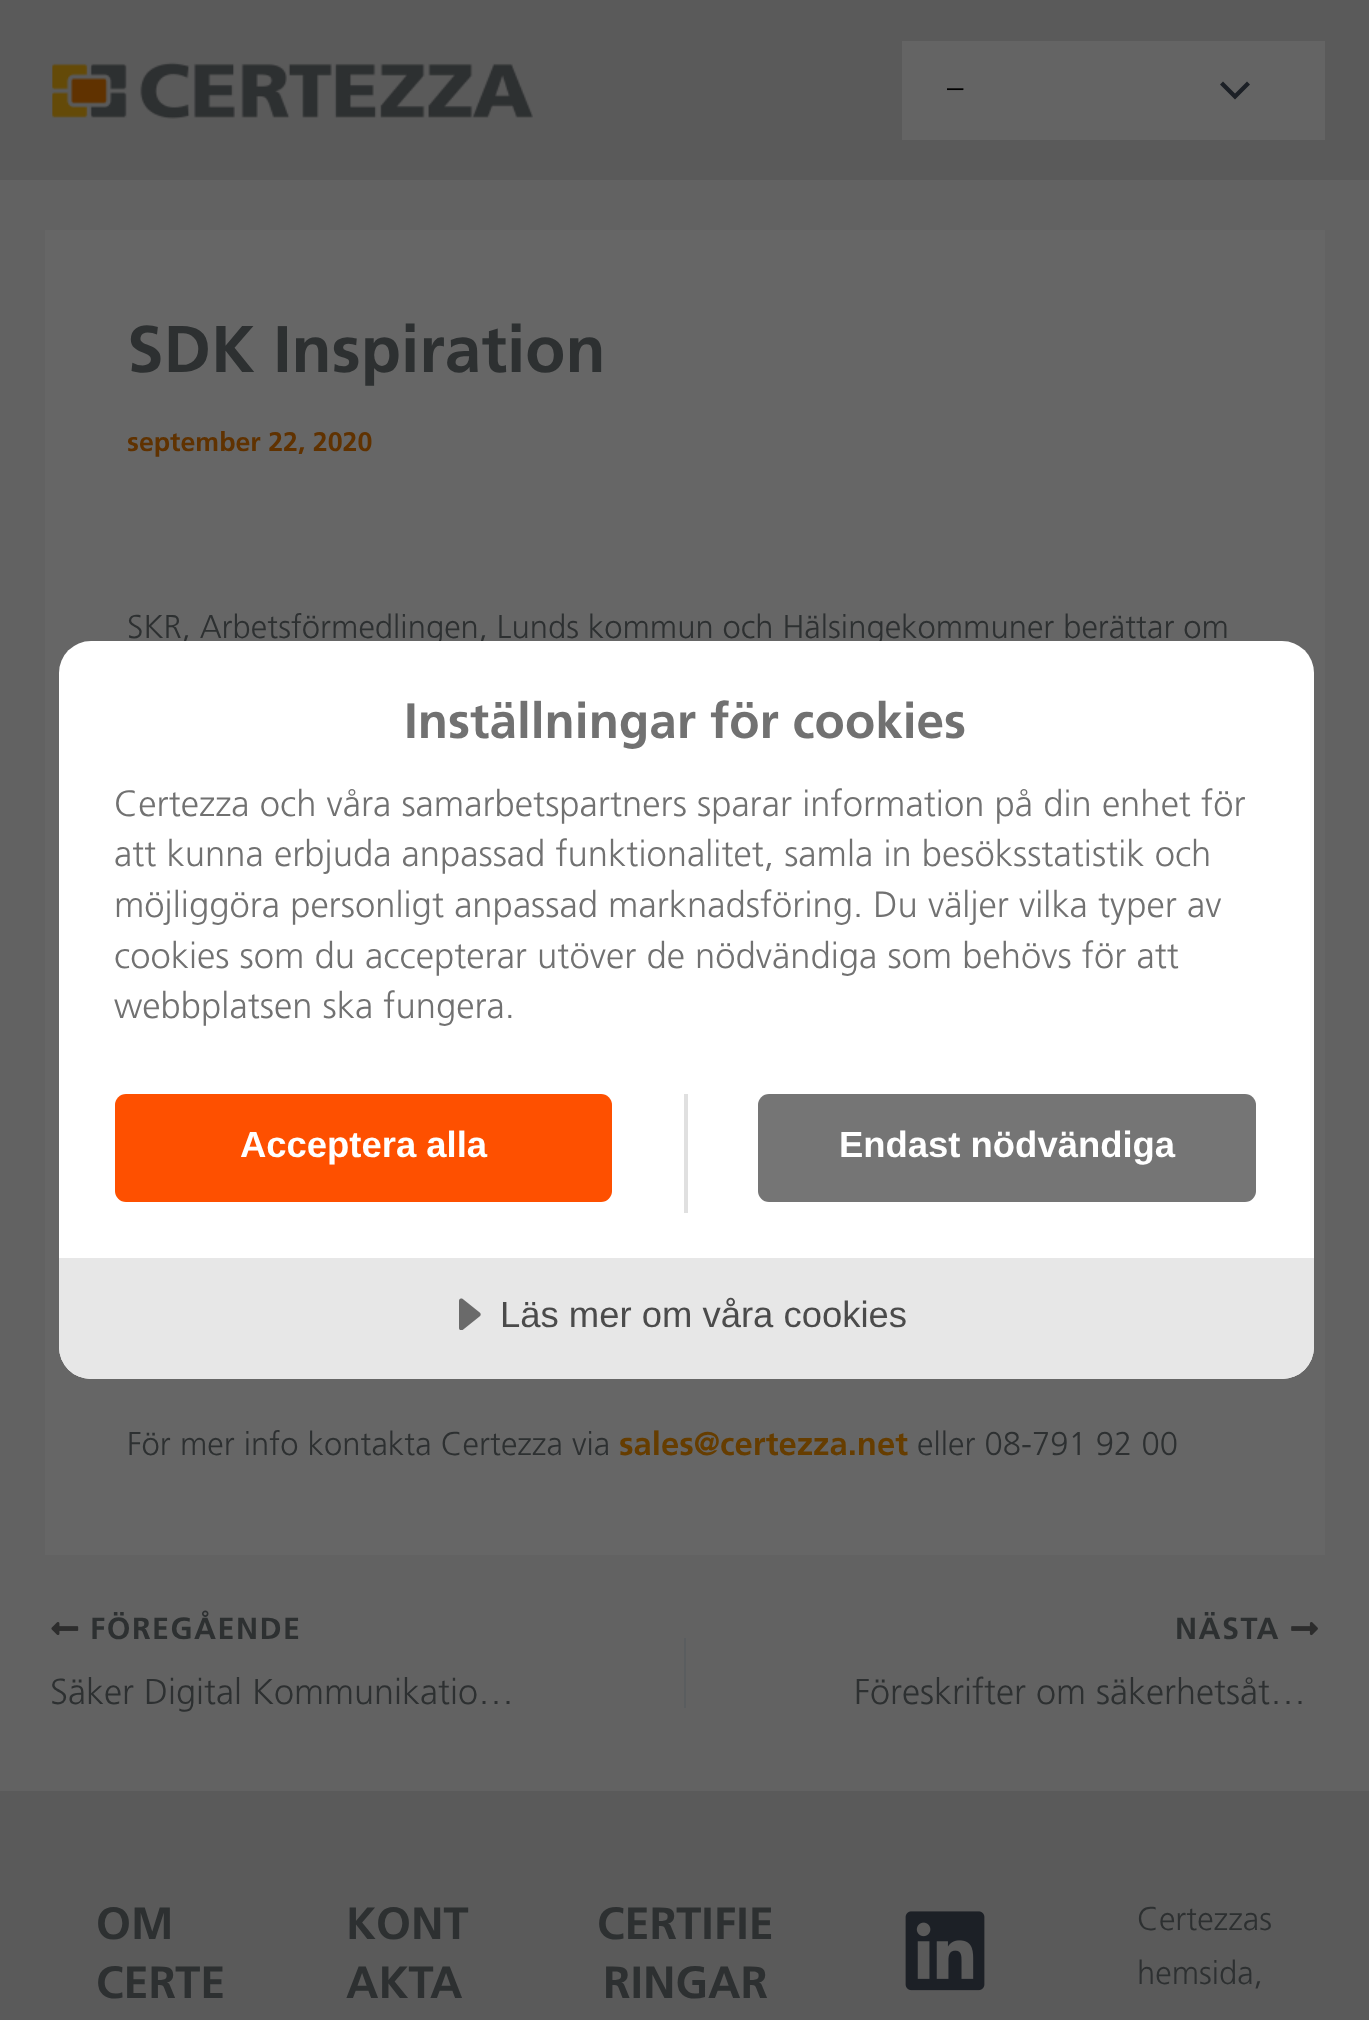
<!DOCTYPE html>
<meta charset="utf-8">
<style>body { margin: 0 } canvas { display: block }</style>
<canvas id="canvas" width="1369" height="2020"></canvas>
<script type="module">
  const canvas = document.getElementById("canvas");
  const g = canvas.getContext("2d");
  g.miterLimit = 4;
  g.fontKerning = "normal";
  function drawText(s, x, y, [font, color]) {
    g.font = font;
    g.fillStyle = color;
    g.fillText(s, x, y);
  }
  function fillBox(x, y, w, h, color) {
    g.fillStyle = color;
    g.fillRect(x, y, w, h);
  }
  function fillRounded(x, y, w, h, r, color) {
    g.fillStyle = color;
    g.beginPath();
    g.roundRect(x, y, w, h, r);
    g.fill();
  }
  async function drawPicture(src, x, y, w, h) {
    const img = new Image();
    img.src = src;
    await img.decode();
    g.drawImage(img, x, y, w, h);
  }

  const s1 = ["300 32.85px 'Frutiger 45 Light'", "#000000"];
  const s2 = ["bold 65.75px 'Frutiger 45 Light'", "#2D3031"];
  const s3 = ["bold 26.75px 'Frutiger 45 Light'", "#603200"];
  const s4 = ["300 32.85px 'Frutiger 45 Light'", "#2D3031"];
  const s5 = ["bold 32.85px 'Frutiger 45 Light'", "#663D00"];
  const s6 = ["bold 30.5px 'Frutiger 45 Light'", "#2D3031"];
  const s7 = ["300 36px 'Frutiger 45 Light'", "#2D3031"];
  const s8 = ["bold 45px 'Frutiger 45 Light'", "#2D3031"];
  const s9 = ["bold 49.6px 'Frutiger 45 Light'", "#717171"];
  const s10 = ["300 36.45px 'Frutiger 45 Light'", "#717171"];
  const s11 = ["bold 36.45px Liberation Sans", "#FFFFFF"];
  const s12 = ["36.45px Liberation Sans", "#4B4B4B"];

  fillBox(0, 0, 1369, 2020, "#626262");
  fillBox(0, 0, 1369, 180, "#5A5A5A");
  await drawPicture("pic1.png", 52, 62, 481, 57);
  fillBox(902, 41, 423, 99, "#646464");
  drawText("–", 947, 98, s1);
  g.fillStyle = "#1C2026";
  g.beginPath();
  g.moveTo(1220, 84.5);
  g.lineTo(1235, 99.5);
  g.lineTo(1250, 84.5);
  g.lineTo(1247, 81.5);
  g.lineTo(1235, 93.5);
  g.lineTo(1223, 81.5);
  g.closePath();
  g.fill();
  fillBox(45, 230, 1280, 1325, "#666666");
  drawText("SDK Inspiration", 127, 372, s2);
  drawText("september 22, 2020", 127, 451, s3);
  g.wordSpacing = "-0.25px";
  drawText("SKR, Arbetsförmedlingen, Lunds kommun och Hälsingekommuner berättar om", 127, 638, s4);
  g.wordSpacing = "0px";
  drawText("För mer info kontakta Certezza via", 127, 1455, s4);
  drawText("sales@certezza.net", 619, 1455, s5);
  drawText("eller 08-791 92 00", 917, 1455, s4);
  await drawPicture("pic2.png", 51, 1622, 28, 13);
  g.letterSpacing = "1.5px";
  drawText("FÖREGÅENDE", 90, 1639, s6);
  g.letterSpacing = "0px";
  drawText("Säker Digital Kommunikatio…", 50, 1704, s7);
  fillBox(684, 1638, 2, 70, "#5A5D5F");
  g.letterSpacing = "1.5px";
  drawText("NÄSTA", 1175, 1639, s6);
  await drawPicture("pic3.png", 1291, 1622, 27, 14);
  g.letterSpacing = "0px";
  drawText("Föreskrifter om säkerhetsåt…", 854, 1704, s7);
  fillBox(0, 1791, 1369, 229, "#5A5A5A");
  drawText("OM", 96, 1939, s8);
  drawText("CERTE", 96, 1998, s8);
  drawText("KONT", 346, 1939, s8);
  drawText("AKTA", 346, 1998, s8);
  drawText("CERTIFIE", 597, 1939, s8);
  drawText("RINGAR", 603, 1998, s8);
  await drawPicture("pic4.png", 905, 1911, 80, 80);
  drawText("Certezzas", 1137, 1930, s4);
  drawText("hemsida,", 1137, 1984, s4);
  fillRounded(59, 641, 1255, 738, 32, "#FFFFFF");
  drawText("Inställningar för cookies", 404, 738, s9);
  drawText("Certezza och våra samarbetspartners sparar information på din enhet för", 114, 816, s10);
  drawText("att kunna erbjuda anpassad funktionalitet, samla in besöksstatistik och", 114, 866, s10);
  drawText("möjliggöra personligt anpassad marknadsföring. Du väljer vilka typer av", 114, 917, s10);
  drawText("cookies som du accepterar utöver de nödvändiga som behövs för att", 114, 968, s10);
  drawText("webbplatsen ska fungera.", 114, 1018, s10);
  fillBox(684, 1094, 4, 119, "#E0E0E0");
  fillRounded(115, 1094, 497, 108, 11, "#FE5000");
  drawText("Acceptera alla", 240, 1157, s11);
  fillRounded(758, 1094, 498, 108, 11, "#757575");
  drawText("Endast nödvändiga", 839, 1157, s11);
  g.fillStyle = "#E7E7E7";
  g.beginPath();
  g.roundRect(59, 1258, 1255, 121, [0, 0, 32, 32]);
  g.fill();
  await drawPicture("pic5.png", 459, 1298, 22, 32);
  drawText("Läs mer om våra cookies", 500, 1327, s12);
</script>
